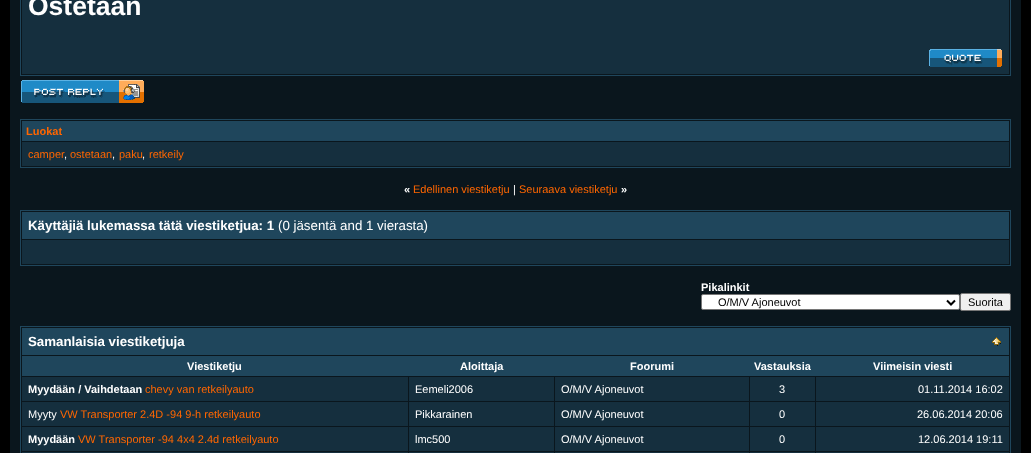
<!DOCTYPE html>
<meta charset="utf-8">
<style>body { margin: 0 } canvas { display: block }</style>
<canvas id="canvas" width="1031" height="453"></canvas>
<script type="module">
  const canvas = document.getElementById("canvas");
  const g = canvas.getContext("2d");
  g.miterLimit = 4;
  g.fontKerning = "normal";
  function drawText(s, x, y, [font, color]) {
    g.font = font;
    g.fillStyle = color;
    g.fillText(s, x, y);
  }
  function fillBox(x, y, w, h, color) {
    g.fillStyle = color;
    g.fillRect(x, y, w, h);
  }
  async function drawPicture(src, x, y, w, h) {
    const img = new Image();
    img.src = src;
    await img.decode();
    g.drawImage(img, x, y, w, h);
  }

  const s1 = ["bold 26.5px Liberation Sans", "#FFFFFF"];
  const s2 = ["bold 11px Liberation Sans", "#FF6600"];
  const s3 = ["11px Liberation Sans", "#FF6600"];
  const s4 = ["11px Liberation Sans", "#FFFFFF"];
  const s5 = ["bold 11px Liberation Sans", "#FFFFFF"];
  const s6 = ["bold 13.3px Liberation Sans", "#FFFFFF"];
  const s7 = ["13.3px Liberation Sans", "#FFFFFF"];
  const s8 = ["11px Liberation Sans", "#000000"];

  fillBox(0, 0, 1031, 453, "#000000");
  fillBox(10, 0, 1011, 453, "#0A161D");
  g.strokeStyle = "#1F465C";
  g.strokeRect(20.5, -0.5, 990, 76);
  fillBox(22, 0, 987, 74, "#152F3E");
  drawText("Ostetaan", 28, 15, s1);
  await drawPicture("pic1.png", 929, 49, 73, 18);
  await drawPicture("pic2.png", 21, 80, 123, 23);
  g.strokeRect(20.5, 119.5, 990, 48);
  fillBox(22, 121, 987, 20, "#1F465C");
  drawText("Luokat", 26, 135, s2);
  fillBox(22, 142, 987, 24, "#152F3E");
  drawText("camper", 28, 158, s3);
  drawText(",", 64, 158, s4);
  drawText("ostetaan", 70, 158, s3);
  drawText(",", 112, 158, s4);
  drawText("paku", 119, 158, s3);
  drawText(",", 142, 158, s4);
  drawText("retkeily", 149, 158, s3);
  drawText("«", 404, 193, s5);
  drawText("Edellinen viestiketju", 413, 193, s3);
  drawText("|", 513, 193, s4);
  drawText("Seuraava viestiketju", 519, 193, s3);
  drawText("»", 621, 193, s5);
  g.strokeRect(20.5, 210.5, 990, 55);
  fillBox(22, 212, 987, 27, "#1F465C");
  drawText("Käyttäjiä lukemassa tätä viestiketjua: 1", 28, 230, s6);
  drawText("(0 jäsentä and 1 vierasta)", 278, 230, s7);
  fillBox(22, 240, 987, 24, "#152F3E");
  drawText("Pikalinkit", 701, 291, s5);
  g.beginPath();
  g.roundRect(701.5, 294.5, 258, 15, 1.5);
  g.fill();
  g.strokeStyle = "#767676";
  g.stroke();
  g.beginPath();
  g.moveTo(947, 300.5);
  g.lineTo(951, 304.5);
  g.lineTo(955, 300.5);
  g.strokeStyle = "#000000";
  g.lineWidth = 2;
  g.stroke();
  drawText("O/M/V Ajoneuvot", 718, 306, s8);
  g.fillStyle = "#EFEFEF";
  g.beginPath();
  g.roundRect(960.5, 293.5, 50, 17, 1.5);
  g.fill();
  g.strokeStyle = "#767676";
  g.lineWidth = 1;
  g.stroke();
  drawText("Suorita", 968, 306, s8);
  g.strokeStyle = "#1F465C";
  g.strokeRect(20.5, 326.5, 990, 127);
  fillBox(22, 328, 987, 27, "#1F465C");
  drawText("Samanlaisia viestiketjuja", 28, 346, s6);
  await drawPicture("pic3.png", 992, 337, 9, 9);
  fillBox(22, 356, 987, 20, "#1F465C");
  drawText("Viestiketju", 187, 370, s5);
  drawText("Aloittaja", 460, 370, s5);
  drawText("Foorumi", 630, 370, s5);
  drawText("Vastauksia", 754, 370, s5);
  drawText("Viimeisin viesti", 873, 370, s5);
  fillBox(22, 377, 386, 24, "#152F3E");
  drawText("Myydään / Vaihdetaan", 28, 393, s5);
  drawText("chevy van retkeilyauto", 145, 393, s3);
  fillBox(409, 377, 145, 24, "#152F3E");
  drawText("Eemeli2006", 415, 393, s4);
  fillBox(555, 377, 194, 24, "#152F3E");
  drawText("O/M/V Ajoneuvot", 561, 393, s4);
  fillBox(750, 377, 65, 24, "#152F3E");
  drawText("3", 779, 393, s4);
  fillBox(816, 377, 193, 24, "#152F3E");
  drawText("01.11.2014 16:02", 918, 393, s4);
  fillBox(22, 402, 386, 24, "#152F3E");
  drawText("Myyty", 28, 418, s4);
  drawText("VW Transporter 2.4D -94 9-h retkeilyauto", 60, 418, s3);
  fillBox(409, 402, 145, 24, "#152F3E");
  drawText("Pikkarainen", 415, 418, s4);
  fillBox(555, 402, 194, 24, "#152F3E");
  drawText("O/M/V Ajoneuvot", 561, 418, s4);
  fillBox(750, 402, 65, 24, "#152F3E");
  drawText("0", 779, 418, s4);
  fillBox(816, 402, 193, 24, "#152F3E");
  drawText("26.06.2014 20:06", 917, 418, s4);
  fillBox(22, 427, 386, 24, "#152F3E");
  drawText("Myydään", 28, 443, s5);
  drawText("VW Transporter -94 4x4 2.4d retkeilyauto", 78, 443, s3);
  fillBox(409, 427, 145, 24, "#152F3E");
  drawText("lmc500", 415, 443, s4);
  fillBox(555, 427, 194, 24, "#152F3E");
  drawText("O/M/V Ajoneuvot", 561, 443, s4);
  fillBox(750, 427, 65, 24, "#152F3E");
  drawText("0", 779, 443, s4);
  fillBox(816, 427, 193, 24, "#152F3E");
  drawText("12.06.2014 19:11", 918, 443, s4);
  fillBox(22, 452, 386, 1, "#152F3E");
  fillBox(409, 452, 145, 1, "#152F3E");
  fillBox(555, 452, 194, 1, "#152F3E");
  fillBox(750, 452, 65, 1, "#152F3E");
  fillBox(816, 452, 193, 1, "#152F3E");
</script>
